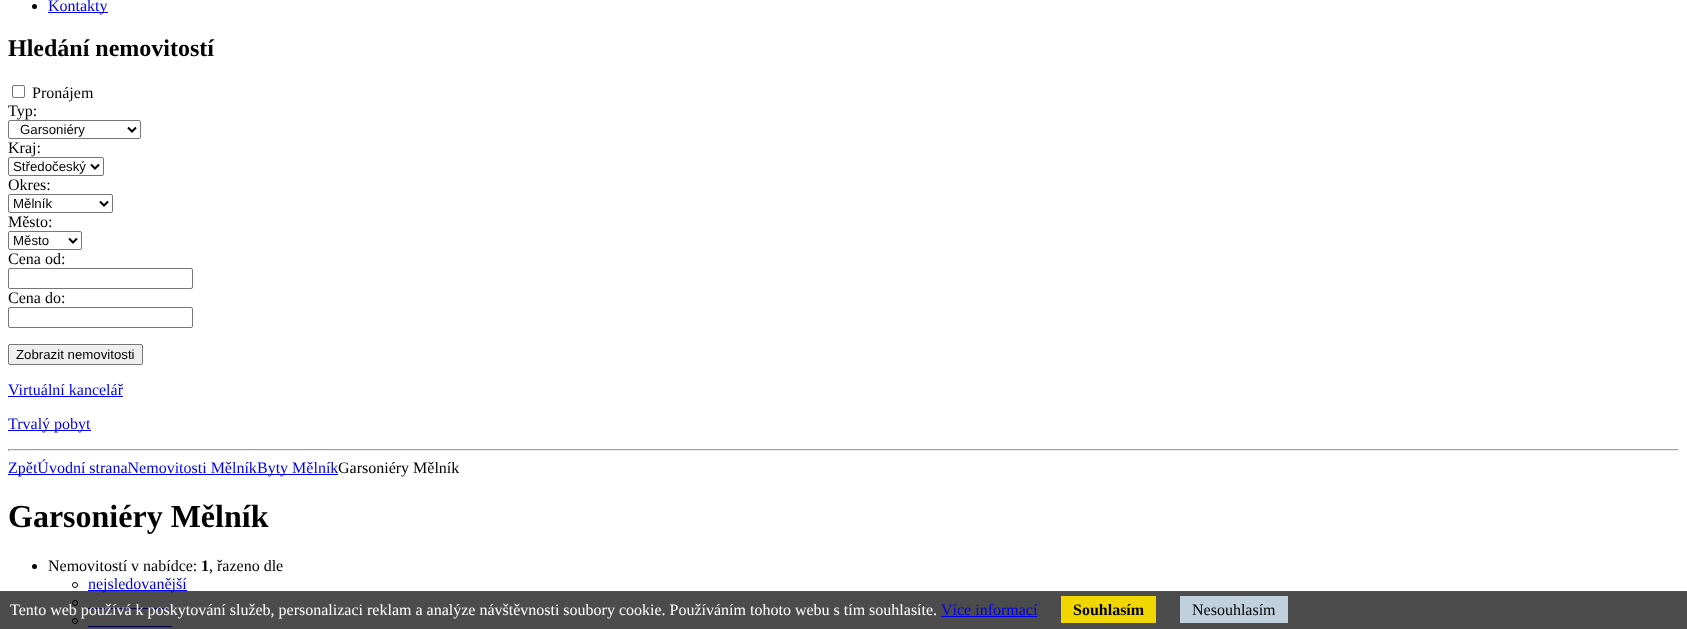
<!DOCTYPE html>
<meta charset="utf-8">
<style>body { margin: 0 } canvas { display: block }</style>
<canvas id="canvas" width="1687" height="629"></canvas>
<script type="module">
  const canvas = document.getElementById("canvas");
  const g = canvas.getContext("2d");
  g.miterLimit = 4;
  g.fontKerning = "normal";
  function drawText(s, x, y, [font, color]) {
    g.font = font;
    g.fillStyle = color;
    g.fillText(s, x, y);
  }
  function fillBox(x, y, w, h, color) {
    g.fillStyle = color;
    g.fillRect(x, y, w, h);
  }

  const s1 = ["16px Liberation Serif", "#0000EE"];
  const s2 = ["bold 24px Liberation Serif", "#000000"];
  const s3 = ["16px Liberation Serif", "#000000"];
  const s4 = ["13.25px Liberation Sans", "#000000"];
  const s5 = ["bold 32px Liberation Serif", "#000000"];
  const s6 = ["bold 16px Liberation Serif", "#000000"];
  const s7 = ["16px Liberation Serif", "#FFFFFF"];

  fillBox(0, 0, 1687, 629, "#FFFFFF");
  g.fillStyle = "#000000";
  g.beginPath();
  g.arc(34.5, 6.5, 2.5, 0, Math.PI * 2);
  g.fill();
  fillBox(48, 12, 60, 1, "#0000EE");
  drawText("Kontakty", 48, 11, s1);
  drawText("Hledání nemovitostí", 8, 56, s2);
  g.beginPath();
  g.roundRect(12.5, 85.5, 12, 12, 1.5);
  g.strokeStyle = "#767676";
  g.stroke();
  drawText("Pronájem", 32, 98, s3);
  drawText("Typ:", 8, 116, s3);
  g.beginPath();
  g.roundRect(8.5, 120.5, 132, 18, 1.5);
  g.stroke();
  g.beginPath();
  g.moveTo(128, 127.5);
  g.lineTo(132, 131.5);
  g.lineTo(136, 127.5);
  g.strokeStyle = "#000000";
  g.lineWidth = 2;
  g.stroke();
  drawText("Garsoniéry", 20, 134, s4);
  drawText("Kraj:", 8, 153, s3);
  g.beginPath();
  g.roundRect(8.5, 157.5, 95, 18, 1.5);
  g.strokeStyle = "#767676";
  g.lineWidth = 1;
  g.stroke();
  g.beginPath();
  g.moveTo(91, 164.5);
  g.lineTo(95, 168.5);
  g.lineTo(99, 164.5);
  g.strokeStyle = "#000000";
  g.lineWidth = 2;
  g.stroke();
  drawText("Středočeský", 13, 171, s4);
  drawText("Okres:", 8, 190, s3);
  g.beginPath();
  g.roundRect(8.5, 194.5, 104, 18, 1.5);
  g.strokeStyle = "#767676";
  g.lineWidth = 1;
  g.stroke();
  g.beginPath();
  g.moveTo(100, 201.5);
  g.lineTo(104, 205.5);
  g.lineTo(108, 201.5);
  g.strokeStyle = "#000000";
  g.lineWidth = 2;
  g.stroke();
  drawText("Mělník", 13, 208, s4);
  drawText("Město:", 8, 227, s3);
  g.beginPath();
  g.roundRect(8.5, 231.5, 73, 18, 1.5);
  g.strokeStyle = "#767676";
  g.lineWidth = 1;
  g.stroke();
  g.beginPath();
  g.moveTo(69, 238.5);
  g.lineTo(73, 242.5);
  g.lineTo(77, 238.5);
  g.strokeStyle = "#000000";
  g.lineWidth = 2;
  g.stroke();
  drawText("Město", 13, 245, s4);
  drawText("Cena od:", 8, 264, s3);
  g.beginPath();
  g.roundRect(8.5, 268.5, 184, 20, 1.5);
  g.strokeStyle = "#767676";
  g.lineWidth = 1;
  g.stroke();
  drawText("Cena do:", 8, 303, s3);
  g.beginPath();
  g.roundRect(8.5, 307.5, 184, 20, 1.5);
  g.stroke();
  g.fillStyle = "#EFEFEF";
  g.beginPath();
  g.roundRect(8.5, 344.5, 134, 20, 1.5);
  g.fill();
  g.stroke();
  drawText("Zobrazit nemovitosti", 16, 359, s4);
  drawText("Virtuální kancelář", 8, 395, s1);
  fillBox(8, 396, 115, 1, "#0000EE");
  fillBox(8, 430, 83, 1, "#0000EE");
  drawText("Trvalý pobyt", 8, 429, s1);
  fillBox(8, 449, 1671, 1, "#9F9F9F");
  fillBox(1678, 449, 1, 2, "#EEEEEE");
  fillBox(8, 450, 1671, 1, "#EEEEEE");
  fillBox(8, 449, 1, 2, "#9F9F9F");
  fillBox(8, 474, 29, 1, "#0000EE");
  drawText("ZpětÚvodní stranaNemovitosti Mělník", 8, 473, s1);
  fillBox(37, 474, 301, 1, "#0000EE");
  drawText("Byty Mělník", 257, 473, s1);
  drawText("Garsoniéry Mělník", 338, 473, s3);
  drawText("Garsoniéry Mělník", 8, 527, s5);
  g.beginPath();
  g.arc(34.5, 566.5, 2.5, 0, Math.PI * 2);
  g.fill();
  drawText("Nemovitostí v nabídce:", 48, 571, s3);
  drawText("1", 201, 571, s6);
  drawText(", řazeno dle", 209, 571, s3);
  g.beginPath();
  g.arc(75, 585, 2.5, 0, Math.PI * 2);
  g.strokeStyle = "#000000";
  g.stroke();
  fillBox(88, 590, 99, 1, "#0000EE");
  drawText("nejsledovanější", 88, 589, s1);
  g.beginPath();
  g.arc(75, 603, 2.5, 0, Math.PI * 2);
  g.stroke();
  fillBox(88, 608, 81, 1, "#0000EE");
  g.beginPath();
  g.arc(75, 621, 2.5, 0, Math.PI * 2);
  g.stroke();
  fillBox(88, 626, 84, 1, "#0000EE");
  fillBox(0, 591, 1687, 38, "rgba(0, 0, 0, 0.7)");
  drawText("Tento web používá k poskytování služeb, personalizaci reklam a analýze návštěvnosti soubory cookie. Používáním tohoto webu s tím souhlasíte.", 10, 615, s7);
  drawText("Více informací", 941, 615, s1);
  fillBox(941, 616, 96, 1, "#0000EE");
  fillBox(1061, 596, 95, 27, "#F1D600");
  drawText("Souhlasím", 1073, 615, s6);
  fillBox(1180, 596, 108, 27, "#C1D0DD");
  drawText("Nesouhlasím", 1192, 615, s3);
</script>
